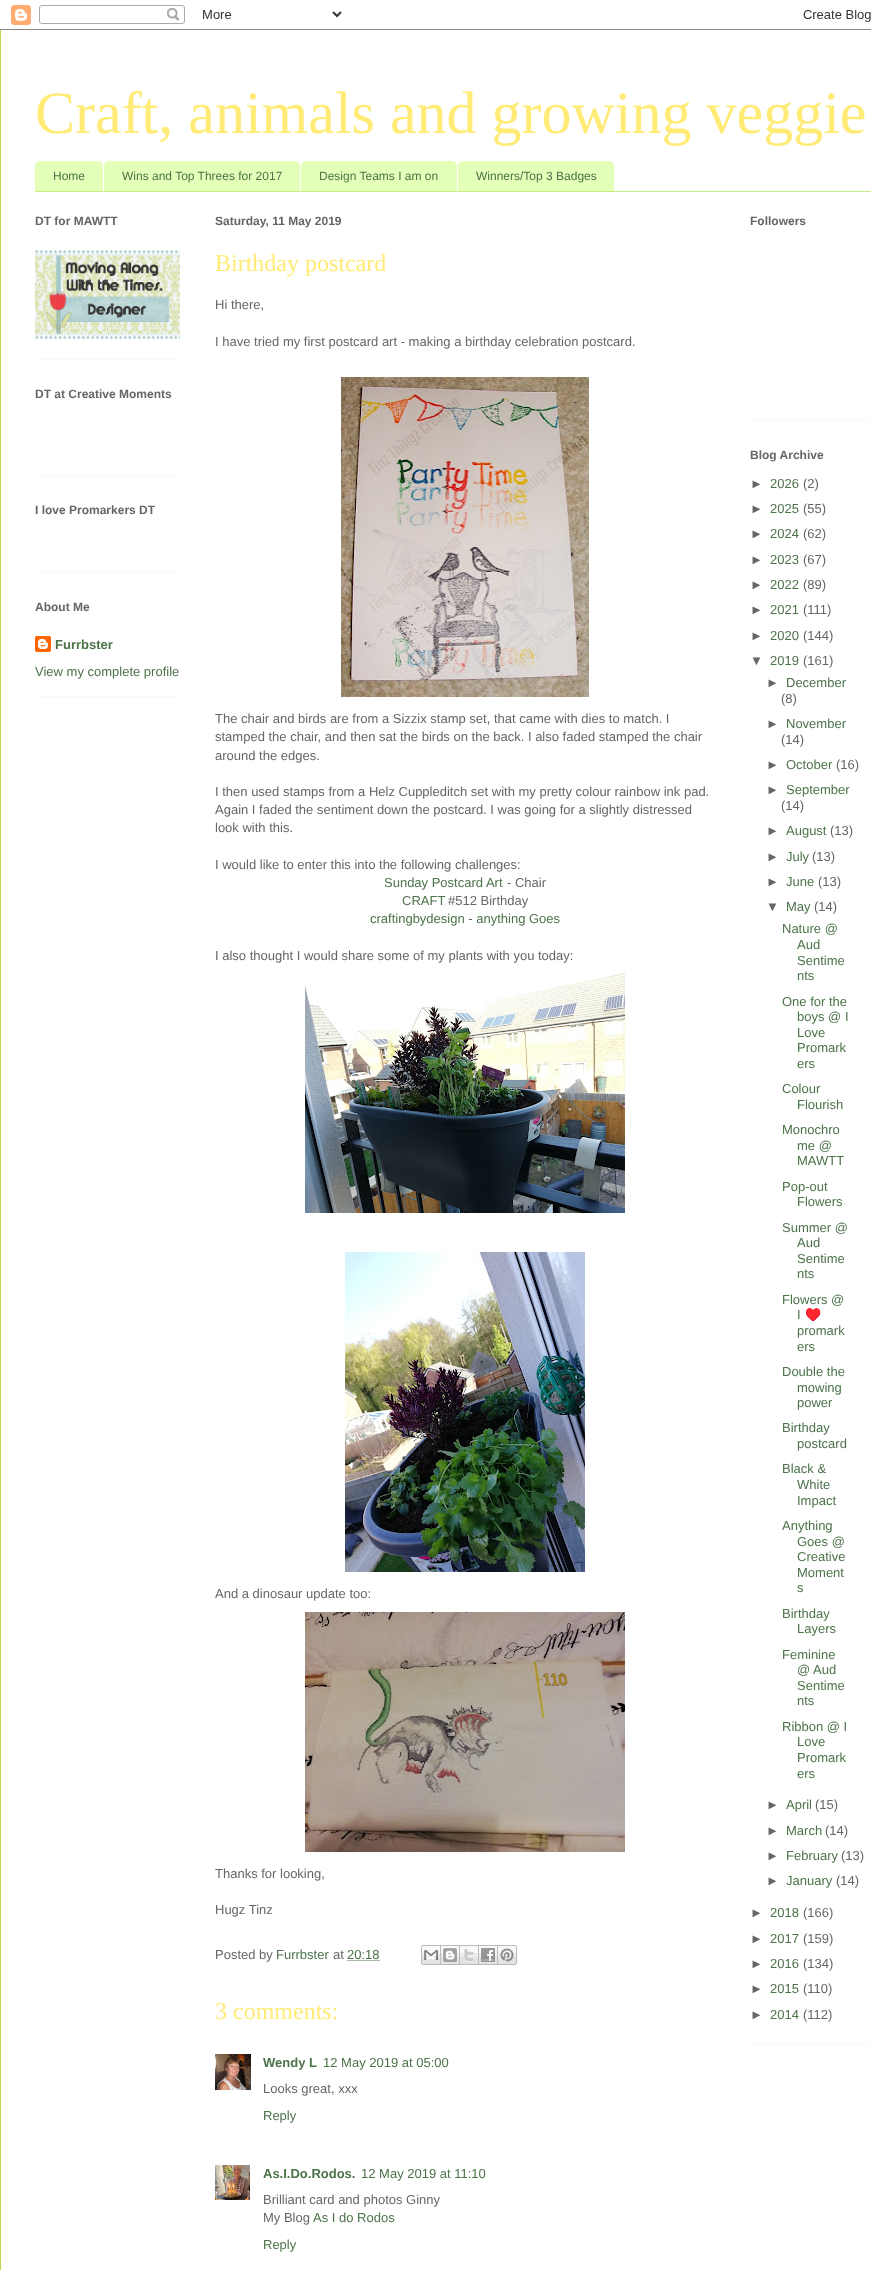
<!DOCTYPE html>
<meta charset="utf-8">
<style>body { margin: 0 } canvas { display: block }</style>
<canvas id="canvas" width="871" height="2270"></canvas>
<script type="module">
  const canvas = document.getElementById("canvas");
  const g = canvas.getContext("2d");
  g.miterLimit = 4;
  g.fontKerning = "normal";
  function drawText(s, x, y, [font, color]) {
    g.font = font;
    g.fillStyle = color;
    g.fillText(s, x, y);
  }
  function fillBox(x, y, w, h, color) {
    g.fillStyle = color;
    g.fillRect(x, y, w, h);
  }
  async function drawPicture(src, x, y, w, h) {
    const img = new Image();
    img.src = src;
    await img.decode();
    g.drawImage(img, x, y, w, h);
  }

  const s1 = ["60px Liberation Serif", "#FFEB75"];
  const s2 = ["12px Liberation Sans", "#4C7349"];
  const s3 = ["bold 12px Liberation Sans", "#666666"];
  const s4 = ["bold 13px Liberation Sans", "#4C7349"];
  const s5 = ["13px Liberation Sans", "#4C7349"];
  const s6 = ["24px Liberation Serif", "#FFEB75"];
  const s7 = ["13px Liberation Sans", "#666666"];
  const s8 = ["13px Noto Color Emoji", "#4C7349"];

  fillBox(0, 0, 871, 2270, "#FFFFFF");
  await drawPicture("pic1.png", 0, 0, 871, 29);
  await drawPicture("pic2.png", 0, 5, 871, 25);
  fillBox(0, 30, 1, 2240, "#B9D84C");
  drawText("Craft, animals and growing veggie", 35, 133, s1);
  fillBox(35, 191, 836, 1, "#C7ED83");
  g.fillStyle = "#E4FFB7";
  g.beginPath();
  g.roundRect(35, 161, 68, 30, [5, 5, 0, 0]);
  g.fill();
  drawText("Home", 53, 180, s2);
  g.fillStyle = "#E4FFB7";
  g.beginPath();
  g.roundRect(104, 161, 196, 30, [5, 5, 0, 0]);
  g.fill();
  drawText("Wins and Top Threes for 2017", 122, 180, s2);
  g.fillStyle = "#E4FFB7";
  g.beginPath();
  g.roundRect(301, 161, 156, 30, [5, 5, 0, 0]);
  g.fill();
  drawText("Design Teams I am on", 319, 180, s2);
  g.fillStyle = "#E4FFB7";
  g.beginPath();
  g.roundRect(458, 161, 156, 30, [5, 5, 0, 0]);
  g.fill();
  drawText("Winners/Top 3 Badges", 476, 180, s2);
  fillBox(35, 359, 145, 1, "#F9F9F9");
  drawText("DT for MAWTT", 35, 225, s3);
  await drawPicture("pic3.png", 35, 250, 145, 89);
  fillBox(35, 475, 145, 1, "#F9F9F9");
  drawText("DT at Creative Moments", 35, 398, s3);
  fillBox(35, 572, 145, 1, "#F9F9F9");
  drawText("I love Promarkers DT", 35, 514, s3);
  fillBox(35, 696, 145, 1, "#F9F9F9");
  drawText("About Me", 35, 611, s3);
  await drawPicture("pic4.png", 35, 636, 16, 16);
  drawText("Furrbster", 55, 649, s4);
  drawText("View my complete profile", 35, 676, s5);
  drawText("Saturday, 11 May 2019", 215, 225, s3);
  drawText("Birthday postcard", 215, 271, s6);
  drawText("Hi there,", 215, 309, s7);
  drawText("I have tried my first postcard art - making a birthday celebration postcard.", 215, 346, s7);
  await drawPicture("pic5.png", 341, 377, 248, 320);
  drawText("The chair and birds are from a Sizzix stamp set, that came with dies to match. I", 215, 723, s7);
  drawText("stamped the chair, and then sat the birds on the back. I also faded stamped the chair", 215, 741, s7);
  drawText("around the edges.", 215, 760, s7);
  drawText("I then used stamps from a Helz Cuppleditch set with my pretty colour rainbow ink pad.", 215, 796, s7);
  drawText("Again I faded the sentiment down the postcard. I was going for a slightly distressed", 215, 814, s7);
  drawText("look with this.", 215, 832, s7);
  drawText("I would like to enter this into the following challenges:", 215, 869, s7);
  drawText("Sunday Postcard Art", 384, 887, s5);
  drawText("- Chair", 507, 887, s7);
  drawText("CRAFT", 402, 905, s5);
  drawText("#512 Birthday", 448, 905, s7);
  drawText("craftingbydesign - anything Goes", 370, 923, s5);
  drawText("I also thought I would share some of my plants with you today:", 215, 960, s7);
  await drawPicture("pic6.png", 305, 973, 320, 240);
  await drawPicture("pic7.png", 345, 1252, 240, 320);
  drawText("And a dinosaur update too:", 215, 1598, s7);
  await drawPicture("pic8.png", 305, 1612, 320, 240);
  drawText("Thanks for looking,", 215, 1878, s7);
  drawText("Hugz Tinz", 215, 1914, s7);
  drawText("Posted by", 215, 1959, s7);
  drawText("Furrbster", 276, 1959, s5);
  drawText("at", 333, 1959, s7);
  drawText("20:18", 347, 1959, s5);
  g.beginPath();
  g.moveTo(347.5, 1960.5);
  g.lineTo(380, 1960.5);
  g.strokeStyle = "#4C7349";
  g.setLineDash([1, 1]);
  g.stroke();
  await drawPicture("pic9.png", 421, 1945, 20, 20);
  await drawPicture("pic10.png", 441, 1945, 19, 20);
  await drawPicture("pic11.png", 460, 1945, 19, 20);
  await drawPicture("pic12.png", 479, 1945, 19, 20);
  await drawPicture("pic13.png", 498, 1945, 19, 20);
  drawText("3 comments:", 215, 2019, s6);
  await drawPicture("pic14.png", 215, 2054, 36, 36);
  drawText("Wendy L", 263, 2067, s4);
  drawText("12 May 2019 at 05:00", 323, 2067, s5);
  drawText("Looks great, xxx", 263, 2093, s7);
  drawText("Reply", 263, 2120, s5);
  await drawPicture("pic15.png", 215, 2165, 35, 35);
  drawText("As.I.Do.Rodos.", 263, 2178, s4);
  drawText("12 May 2019 at 11:10", 361, 2178, s5);
  drawText("Brilliant card and photos Ginny", 263, 2204, s7);
  drawText("My Blog", 263, 2222, s7);
  drawText("As I do Rodos", 313, 2222, s5);
  drawText("Reply", 263, 2249, s5);
  fillBox(750, 420, 121, 1, "#F9F9F9");
  drawText("Followers", 750, 225, s3);
  fillBox(750, 2044, 121, 1, "#F9F9F9");
  drawText("Blog Archive", 750, 459, s3);
  drawText("►", 750, 488, s7);
  drawText("2026", 770, 488, s5);
  drawText("(2)", 803, 488, s7);
  drawText("►", 750, 513, s7);
  drawText("2025", 770, 513, s5);
  drawText("(55)", 803, 513, s7);
  drawText("►", 750, 538, s7);
  drawText("2024", 770, 538, s5);
  drawText("(62)", 803, 538, s7);
  drawText("►", 750, 564, s7);
  drawText("2023", 770, 564, s5);
  drawText("(67)", 803, 564, s7);
  drawText("►", 750, 589, s7);
  drawText("2022", 770, 589, s5);
  drawText("(89)", 803, 589, s7);
  drawText("►", 750, 614, s7);
  drawText("2021", 770, 614, s5);
  drawText("(111)", 803, 614, s7);
  drawText("►", 750, 640, s7);
  drawText("2020", 770, 640, s5);
  drawText("(144)", 803, 640, s7);
  drawText("▼", 750, 665, s7);
  drawText("2019", 770, 665, s5);
  drawText("(161)", 803, 665, s7);
  drawText("►", 766, 687, s7);
  drawText("December", 786, 687, s5);
  drawText("(8)", 781, 703, s7);
  drawText("►", 766, 728, s7);
  drawText("November", 786, 728, s5);
  drawText("(14)", 781, 744, s7);
  drawText("►", 766, 769, s7);
  drawText("October", 786, 769, s5);
  drawText("(16)", 836, 769, s7);
  drawText("►", 766, 794, s7);
  drawText("September", 786, 794, s5);
  drawText("(14)", 781, 810, s7);
  drawText("►", 766, 835, s7);
  drawText("August", 786, 835, s5);
  drawText("(13)", 830, 835, s7);
  drawText("►", 766, 861, s7);
  drawText("July", 786, 861, s5);
  drawText("(13)", 812, 861, s7);
  drawText("►", 766, 886, s7);
  drawText("June", 786, 886, s5);
  drawText("(13)", 818, 886, s7);
  drawText("▼", 766, 911, s7);
  drawText("May", 786, 911, s5);
  drawText("(14)", 814, 911, s7);
  drawText("Nature @", 782, 933, s5);
  drawText("Aud", 797, 949, s5);
  drawText("Sentime", 797, 965, s5);
  drawText("nts", 797, 980, s5);
  drawText("One for the", 782, 1006, s5);
  drawText("boys @ I", 797, 1021, s5);
  drawText("Love", 797, 1037, s5);
  drawText("Promark", 797, 1052, s5);
  drawText("ers", 797, 1068, s5);
  drawText("Colour", 782, 1093, s5);
  drawText("Flourish", 797, 1109, s5);
  drawText("Monochro", 782, 1134, s5);
  drawText("me @", 797, 1150, s5);
  drawText("MAWTT", 797, 1165, s5);
  drawText("Pop-out", 782, 1191, s5);
  drawText("Flowers", 797, 1206, s5);
  drawText("Summer @", 782, 1232, s5);
  drawText("Aud", 797, 1247, s5);
  drawText("Sentime", 797, 1263, s5);
  drawText("nts", 797, 1278, s5);
  drawText("Flowers @", 782, 1304, s5);
  drawText("I", 797, 1319, s5);
  drawText("♥️", 805, 1319, s8);
  drawText("promark", 797, 1335, s5);
  drawText("ers", 797, 1351, s5);
  drawText("Double the", 782, 1376, s5);
  drawText("mowing", 797, 1392, s5);
  drawText("power", 797, 1407, s5);
  drawText("Birthday", 782, 1432, s5);
  drawText("postcard", 797, 1448, s5);
  drawText("Black &", 782, 1473, s5);
  drawText("White", 797, 1489, s5);
  drawText("Impact", 797, 1505, s5);
  drawText("Anything", 782, 1530, s5);
  drawText("Goes @", 797, 1546, s5);
  drawText("Creative", 797, 1561, s5);
  drawText("Moment", 797, 1577, s5);
  drawText("s", 797, 1592, s5);
  drawText("Birthday", 782, 1618, s5);
  drawText("Layers", 797, 1633, s5);
  drawText("Feminine", 782, 1659, s5);
  drawText("@ Aud", 797, 1674, s5);
  drawText("Sentime", 797, 1690, s5);
  drawText("nts", 797, 1705, s5);
  drawText("Ribbon @ I", 782, 1731, s5);
  drawText("Love", 797, 1746, s5);
  drawText("Promark", 797, 1762, s5);
  drawText("ers", 797, 1778, s5);
  drawText("►", 766, 1809, s7);
  drawText("April", 786, 1809, s5);
  drawText("(15)", 815, 1809, s7);
  drawText("►", 766, 1835, s7);
  drawText("March", 786, 1835, s5);
  drawText("(14)", 825, 1835, s7);
  drawText("►", 766, 1860, s7);
  drawText("February", 786, 1860, s5);
  drawText("(13)", 841, 1860, s7);
  drawText("►", 766, 1885, s7);
  drawText("January", 786, 1885, s5);
  drawText("(14)", 836, 1885, s7);
  drawText("►", 750, 1917, s7);
  drawText("2018", 770, 1917, s5);
  drawText("(166)", 803, 1917, s7);
  drawText("►", 750, 1943, s7);
  drawText("2017", 770, 1943, s5);
  drawText("(159)", 803, 1943, s7);
  drawText("►", 750, 1968, s7);
  drawText("2016", 770, 1968, s5);
  drawText("(134)", 803, 1968, s7);
  drawText("►", 750, 1993, s7);
  drawText("2015", 770, 1993, s5);
  drawText("(110)", 803, 1993, s7);
  drawText("►", 750, 2019, s7);
  drawText("2014", 770, 2019, s5);
  drawText("(112)", 803, 2019, s7);
</script>
